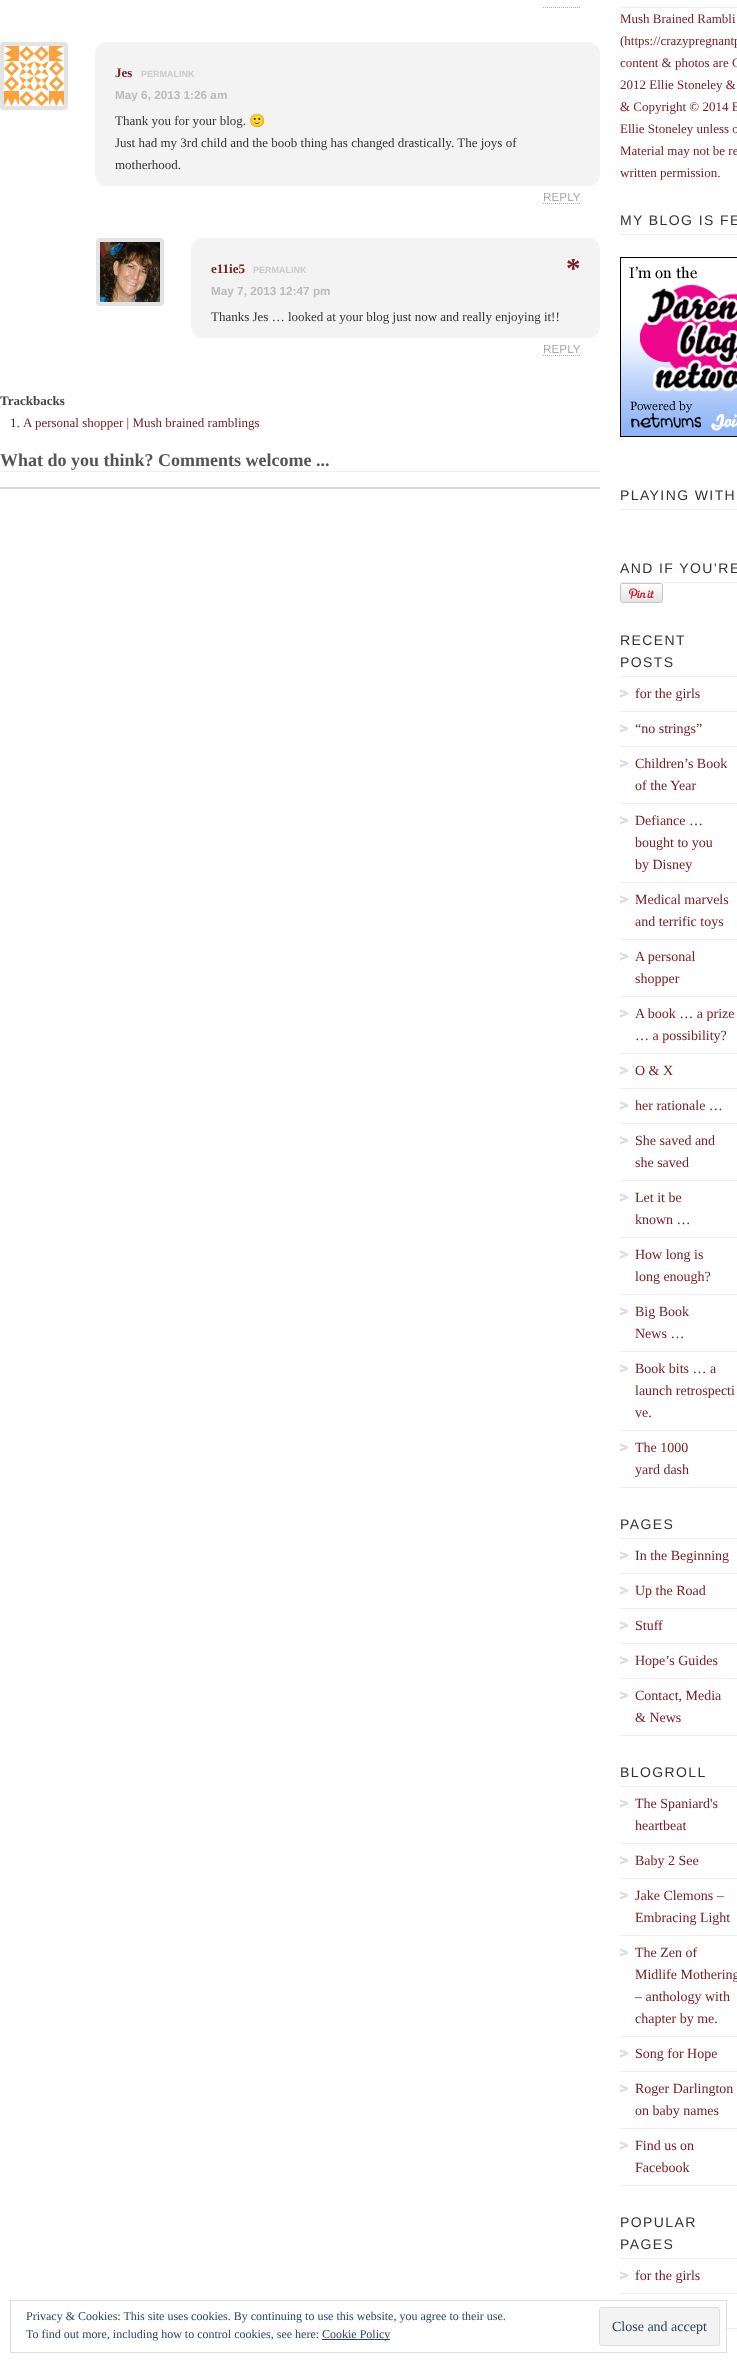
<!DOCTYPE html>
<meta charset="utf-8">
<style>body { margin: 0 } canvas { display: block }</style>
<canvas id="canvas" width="737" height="2363"></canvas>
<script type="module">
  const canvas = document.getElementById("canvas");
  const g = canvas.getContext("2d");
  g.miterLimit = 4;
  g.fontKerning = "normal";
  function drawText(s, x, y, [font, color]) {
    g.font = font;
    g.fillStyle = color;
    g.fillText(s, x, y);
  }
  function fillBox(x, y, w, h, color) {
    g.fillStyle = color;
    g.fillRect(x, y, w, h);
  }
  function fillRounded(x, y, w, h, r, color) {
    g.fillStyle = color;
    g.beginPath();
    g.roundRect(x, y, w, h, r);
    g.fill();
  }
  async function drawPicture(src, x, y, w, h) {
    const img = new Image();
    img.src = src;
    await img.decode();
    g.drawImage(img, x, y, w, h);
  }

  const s1 = ["bold 13px Liberation Serif", "#772124"];
  const s2 = ["bold 9px Liberation Sans", "#CCCCCC"];
  const s3 = ["bold 11.75px Liberation Sans", "#BBBBBB"];
  const s4 = ["13px Liberation Serif", "#333333"];
  const s5 = ["13px Noto Color Emoji", "#333333"];
  const s6 = ["11.75px Liberation Sans", "#AAAAAA"];
  const s7 = ["bold 29px Liberation Serif", "#772124"];
  const s8 = ["bold 13px Liberation Serif", "#444444"];
  const s9 = ["13px Liberation Serif", "#772124"];
  const s10 = ["bold 18px Liberation Serif", "#555555"];
  const s11 = ["14px Liberation Sans", "#333333"];
  const s12 = ["14px Liberation Serif", "#772124"];
  const s13 = ["12px Liberation Serif", "#2E4467"];
  const s14 = ["14px Liberation Serif", "#2E4453"];

  fillBox(0, 0, 737, 2363, "#FFFFFF");
  g.beginPath();
  g.moveTo(543, 7.5);
  g.lineTo(580, 7.5);
  g.strokeStyle = "#AAAAAA";
  g.setLineDash([1, 1]);
  g.stroke();
  g.beginPath();
  g.roundRect(2, 44, 64, 64, 2);
  g.strokeStyle = "#E3E3E3";
  g.lineWidth = 4;
  g.setLineDash([]);
  g.stroke();
  await drawPicture("pic1.png", 4, 46, 60, 60);
  fillRounded(95, 42, 505, 144, 12, "#F3F3F3");
  drawText("Jes", 115, 77, s1);
  drawText("PERMALINK", 141, 77, s2);
  drawText("May 6, 2013 1:26 am", 115, 99, s3);
  drawText("Thank you for your blog.", 115, 125, s4);
  drawText("🙂", 249, 125, s5);
  drawText("Just had my 3rd child and the boob thing has changed drastically. The joys of", 115, 147, s4);
  drawText("motherhood.", 115, 169, s4);
  drawText("REPLY", 543, 201, s6);
  g.beginPath();
  g.moveTo(543, 203.5);
  g.lineTo(580, 203.5);
  g.strokeStyle = "#AAAAAA";
  g.lineWidth = 1;
  g.setLineDash([1, 1]);
  g.stroke();
  g.beginPath();
  g.roundRect(98, 240, 64, 64, 2);
  g.strokeStyle = "#E3E3E3";
  g.lineWidth = 4;
  g.setLineDash([]);
  g.stroke();
  await drawPicture("pic2.png", 100, 242, 60, 60);
  fillRounded(191, 238, 409, 100, 12, "#F3F3F3");
  drawText("e11ie5", 211, 273, s1);
  drawText("PERMALINK", 253, 273, s2);
  drawText("*", 566, 278, s7);
  drawText("May 7, 2013 12:47 pm", 211, 295, s3);
  drawText("Thanks Jes … looked at your blog just now and really enjoying it!!", 211, 321, s4);
  drawText("REPLY", 543, 353, s6);
  g.beginPath();
  g.moveTo(543, 355.5);
  g.lineTo(580, 355.5);
  g.strokeStyle = "#AAAAAA";
  g.lineWidth = 1;
  g.setLineDash([1, 1]);
  g.stroke();
  drawText("Trackbacks", 0, 405, s8);
  drawText("1.", 10, 427, s4);
  drawText("A personal shopper | Mush brained ramblings", 23, 427, s9);
  fillBox(0, 471, 600, 1, "#EEEEEE");
  drawText("What do you think? Comments welcome ...", 0, 466, s10);
  fillBox(0, 487, 600, 2, "#DCDCDE");
  fillBox(620, 7, 117, 1, "#EEEEEE");
  drawText("Mush Brained Rambli", 620, 23, s9);
  drawText("(https://crazypregnantp", 620, 45, s9);
  drawText("content & photos are C", 620, 67, s9);
  drawText("2012 Ellie Stoneley &", 620, 89, s9);
  drawText("& Copyright © 2014 E", 620, 111, s9);
  drawText("Ellie Stoneley unless o", 620, 133, s9);
  drawText("Material may not be re", 620, 155, s9);
  drawText("written permission.", 620, 177, s9);
  fillBox(620, 234, 117, 1, "#EEEEEE");
  g.letterSpacing = "1.4px";
  drawText("MY BLOG IS FE", 620, 225, s11);
  await drawPicture("pic3.png", 620, 257, 117, 180);
  fillBox(620, 509, 117, 1, "#EEEEEE");
  drawText("PLAYING WITH", 620, 500, s11);
  fillBox(620, 582, 117, 1, "#EEEEEE");
  drawText("AND IF YOU’RE", 620, 573, s11);
  await drawPicture("pic4.png", 620, 583, 43, 20);
  fillBox(620, 676, 117, 1, "#EEEEEE");
  drawText("RECENT", 620, 645, s11);
  drawText("POSTS", 620, 667, s11);
  fillBox(620, 711, 117, 1, "#EEEEEE");
  await drawPicture("pic5.png", 620, 689, 8, 9);
  g.letterSpacing = "0px";
  drawText("for the girls", 635, 698, s12);
  fillBox(620, 746, 117, 1, "#EEEEEE");
  await drawPicture("pic5.png", 620, 724, 8, 9);
  drawText("“no strings”", 635, 733, s12);
  fillBox(620, 803, 117, 1, "#EEEEEE");
  await drawPicture("pic5.png", 620, 759, 8, 9);
  drawText("Children’s Book", 635, 768, s12);
  drawText("of the Year", 635, 790, s12);
  fillBox(620, 882, 117, 1, "#EEEEEE");
  await drawPicture("pic5.png", 620, 816, 8, 9);
  drawText("Defiance …", 635, 825, s12);
  drawText("bought to you", 635, 847, s12);
  drawText("by Disney", 635, 869, s12);
  fillBox(620, 939, 117, 1, "#EEEEEE");
  await drawPicture("pic5.png", 620, 895, 8, 9);
  drawText("Medical marvels", 635, 904, s12);
  drawText("and terrific toys", 635, 926, s12);
  fillBox(620, 996, 117, 1, "#EEEEEE");
  await drawPicture("pic5.png", 620, 952, 8, 9);
  drawText("A personal", 635, 961, s12);
  drawText("shopper", 635, 983, s12);
  fillBox(620, 1053, 117, 1, "#EEEEEE");
  await drawPicture("pic5.png", 620, 1009, 8, 9);
  drawText("A book … a prize", 635, 1018, s12);
  drawText("… a possibility?", 635, 1040, s12);
  fillBox(620, 1088, 117, 1, "#EEEEEE");
  await drawPicture("pic5.png", 620, 1066, 8, 9);
  drawText("O & X", 635, 1075, s12);
  fillBox(620, 1123, 117, 1, "#EEEEEE");
  await drawPicture("pic5.png", 620, 1101, 8, 9);
  drawText("her rationale …", 635, 1110, s12);
  fillBox(620, 1180, 117, 1, "#EEEEEE");
  await drawPicture("pic5.png", 620, 1136, 8, 9);
  drawText("She saved and", 635, 1145, s12);
  drawText("she saved", 635, 1167, s12);
  fillBox(620, 1237, 117, 1, "#EEEEEE");
  await drawPicture("pic5.png", 620, 1193, 8, 9);
  drawText("Let it be", 635, 1202, s12);
  drawText("known …", 635, 1224, s12);
  fillBox(620, 1294, 117, 1, "#EEEEEE");
  await drawPicture("pic5.png", 620, 1250, 8, 9);
  drawText("How long is", 635, 1259, s12);
  drawText("long enough?", 635, 1281, s12);
  fillBox(620, 1351, 117, 1, "#EEEEEE");
  await drawPicture("pic5.png", 620, 1307, 8, 9);
  drawText("Big Book", 635, 1316, s12);
  drawText("News …", 635, 1338, s12);
  fillBox(620, 1430, 117, 1, "#EEEEEE");
  await drawPicture("pic5.png", 620, 1364, 8, 9);
  drawText("Book bits … a", 635, 1373, s12);
  drawText("launch retrospecti", 635, 1395, s12);
  drawText("ve.", 635, 1417, s12);
  fillBox(620, 1487, 117, 1, "#EEEEEE");
  await drawPicture("pic5.png", 620, 1443, 8, 9);
  drawText("The 1000", 635, 1452, s12);
  drawText("yard dash", 635, 1474, s12);
  fillBox(620, 1538, 117, 1, "#EEEEEE");
  g.letterSpacing = "1.4px";
  drawText("PAGES", 620, 1529, s11);
  fillBox(620, 1573, 117, 1, "#EEEEEE");
  await drawPicture("pic5.png", 620, 1551, 8, 9);
  g.letterSpacing = "0px";
  drawText("In the Beginning", 635, 1560, s12);
  fillBox(620, 1608, 117, 1, "#EEEEEE");
  await drawPicture("pic5.png", 620, 1586, 8, 9);
  drawText("Up the Road", 635, 1595, s12);
  fillBox(620, 1643, 117, 1, "#EEEEEE");
  await drawPicture("pic5.png", 620, 1621, 8, 9);
  drawText("Stuff", 635, 1630, s12);
  fillBox(620, 1678, 117, 1, "#EEEEEE");
  await drawPicture("pic5.png", 620, 1656, 8, 9);
  drawText("Hope’s Guides", 635, 1665, s12);
  fillBox(620, 1735, 117, 1, "#EEEEEE");
  await drawPicture("pic5.png", 620, 1691, 8, 9);
  drawText("Contact, Media", 635, 1700, s12);
  drawText("& News", 635, 1722, s12);
  fillBox(620, 1786, 117, 1, "#EEEEEE");
  g.letterSpacing = "1.4px";
  drawText("BLOGROLL", 620, 1777, s11);
  fillBox(620, 1843, 117, 1, "#EEEEEE");
  await drawPicture("pic5.png", 620, 1799, 8, 9);
  g.letterSpacing = "0px";
  drawText("The Spaniard's", 635, 1808, s12);
  drawText("heartbeat", 635, 1830, s12);
  fillBox(620, 1878, 117, 1, "#EEEEEE");
  await drawPicture("pic5.png", 620, 1856, 8, 9);
  drawText("Baby 2 See", 635, 1865, s12);
  fillBox(620, 1935, 117, 1, "#EEEEEE");
  await drawPicture("pic5.png", 620, 1891, 8, 9);
  drawText("Jake Clemons –", 635, 1900, s12);
  drawText("Embracing Light", 635, 1922, s12);
  fillBox(620, 2036, 117, 1, "#EEEEEE");
  await drawPicture("pic5.png", 620, 1948, 8, 9);
  drawText("The Zen of", 635, 1957, s12);
  drawText("Midlife Mothering", 635, 1979, s12);
  drawText("– anthology with", 635, 2001, s12);
  drawText("chapter by me.", 635, 2023, s12);
  fillBox(620, 2071, 117, 1, "#EEEEEE");
  await drawPicture("pic5.png", 620, 2049, 8, 9);
  drawText("Song for Hope", 635, 2058, s12);
  fillBox(620, 2128, 117, 1, "#EEEEEE");
  await drawPicture("pic5.png", 620, 2084, 8, 9);
  drawText("Roger Darlington", 635, 2093, s12);
  drawText("on baby names", 635, 2115, s12);
  fillBox(620, 2185, 117, 1, "#EEEEEE");
  await drawPicture("pic5.png", 620, 2141, 8, 9);
  drawText("Find us on", 635, 2150, s12);
  drawText("Facebook", 635, 2172, s12);
  fillBox(620, 2258, 117, 1, "#EEEEEE");
  g.letterSpacing = "1.4px";
  drawText("POPULAR", 620, 2227, s11);
  drawText("PAGES", 620, 2249, s11);
  fillBox(620, 2293, 117, 1, "#EEEEEE");
  await drawPicture("pic5.png", 620, 2271, 8, 9);
  g.letterSpacing = "0px";
  drawText("for the girls", 635, 2280, s12);
  fillBox(727, 2328, 10, 1, "#EEEEEE");
  g.strokeStyle = "#DEDEDE";
  g.setLineDash([]);
  g.strokeRect(10.5, 2300.5, 716, 52);
  drawText("Privacy & Cookies: This site uses cookies. By continuing to use this website, you agree to their use.", 26, 2320, s13);
  drawText("To find out more, including how to control cookies, see here:", 26, 2338, s13);
  fillBox(322, 2339, 68, 1, "#2E4467");
  drawText("Cookie Policy", 322, 2338, s13);
  g.fillStyle = "#F3F3F3";
  g.beginPath();
  g.roundRect(599.5, 2307.5, 120, 38, 2.5);
  g.fill();
  g.stroke();
  drawText("Close and accept", 612, 2331, s14);
</script>
